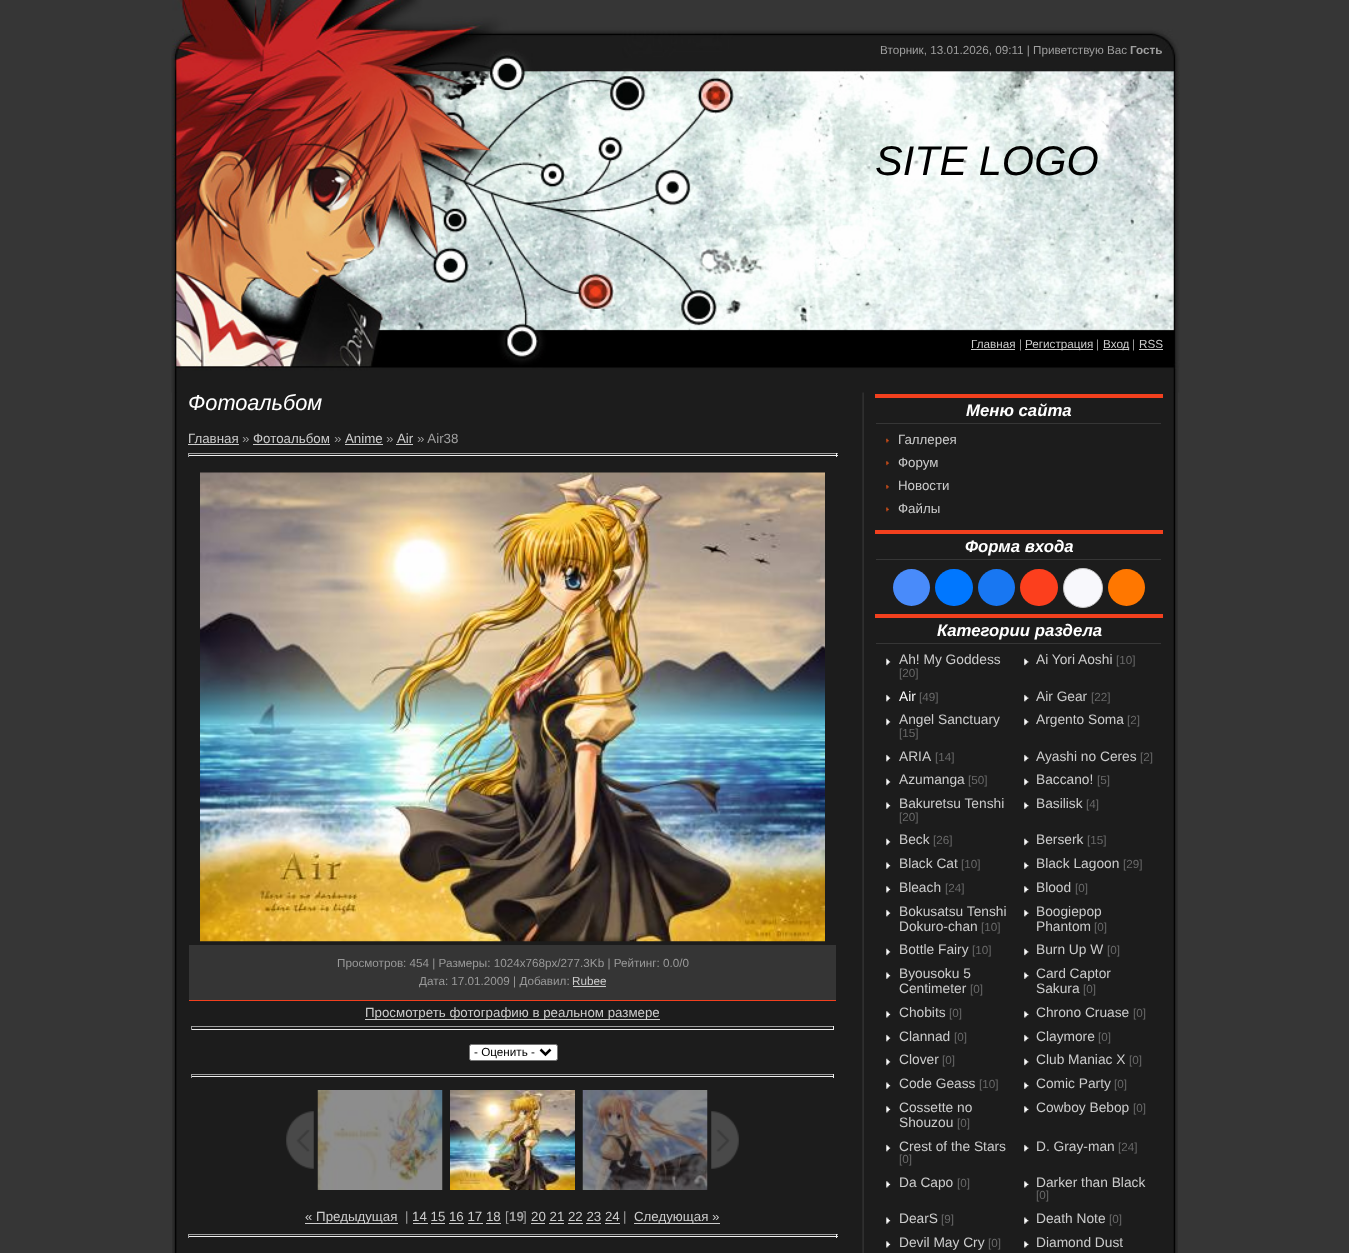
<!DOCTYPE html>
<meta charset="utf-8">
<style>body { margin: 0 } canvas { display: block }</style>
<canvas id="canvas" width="1349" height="1253"></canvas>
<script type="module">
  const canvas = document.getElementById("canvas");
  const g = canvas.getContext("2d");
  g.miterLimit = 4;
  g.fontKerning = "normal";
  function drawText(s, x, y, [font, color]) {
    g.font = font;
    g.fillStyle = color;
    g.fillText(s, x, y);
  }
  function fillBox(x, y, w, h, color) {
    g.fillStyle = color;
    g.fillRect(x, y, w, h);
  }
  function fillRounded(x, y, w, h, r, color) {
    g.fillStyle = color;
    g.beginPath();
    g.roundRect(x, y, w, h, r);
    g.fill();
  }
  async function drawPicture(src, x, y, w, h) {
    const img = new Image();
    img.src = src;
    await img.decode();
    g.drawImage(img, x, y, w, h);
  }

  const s1 = ["11.7px Liberation Sans", "#9F9F9F"];
  const s2 = ["bold 11.7px Liberation Sans", "#9F9F9F"];
  const s3 = ["italic 41.5px Liberation Sans", "#000000"];
  const s4 = ["11.7px Liberation Sans", "#CCCCCC"];
  const s5 = ["italic 21.75px Liberation Sans", "#FFFFFF"];
  const s6 = ["13.3px Liberation Sans", "#CCCCCC"];
  const s7 = ["13.3px Liberation Sans", "#9F9F9F"];
  const s8 = ["11.7px Liberation Sans", "#999999"];
  const s9 = ["11.7px Liberation Sans", "#000000"];
  const s10 = ["bold 13.3px Liberation Sans", "#9F9F9F"];
  const s11 = ["italic bold 16.75px Liberation Sans", "#FFFFFF"];
  const s12 = ["13.75px Liberation Sans", "#CCCCCC"];
  const s13 = ["11.7px Liberation Sans", "#696969"];
  const s14 = ["13.75px Liberation Sans", "#FFFFFF"];

  fillBox(0, 0, 1349, 1253, "#363636");
  await drawPicture("pic1.png", 172, 392, 1006, 861);
  await drawPicture("pic2.png", 171, 0, 1009, 393);
  drawText("Вторник, 13.01.2026, 09:11 | Приветствую Вас", 880, 54, s1);
  drawText("Гость", 1130, 54, s2);
  drawText("SITE LOGO", 875, 175, s3);
  drawText("Главная", 971, 348, s4);
  fillBox(971, 349, 44, 1, "#CCCCCC");
  drawText("|", 1019, 348, s1);
  fillBox(1025, 349, 68, 1, "#CCCCCC");
  drawText("Регистрация", 1025, 348, s4);
  drawText("|", 1096, 348, s1);
  fillBox(1103, 349, 26, 1, "#CCCCCC");
  drawText("Вход", 1103, 348, s4);
  drawText("|", 1132, 348, s1);
  drawText("RSS", 1139, 348, s4);
  fillBox(1139, 349, 24, 1, "#CCCCCC");
  drawText("Фотоальбом", 188, 410, s5);
  drawText("Главная", 188, 443, s6);
  fillBox(188, 444, 51, 1, "#CCCCCC");
  drawText("»", 242, 443, s7);
  drawText("Фотоальбом", 253, 443, s6);
  fillBox(253, 444, 77, 1, "#CCCCCC");
  drawText("»", 334, 443, s7);
  drawText("Anime", 345, 443, s6);
  fillBox(345, 444, 38, 1, "#CCCCCC");
  drawText("»", 386, 443, s7);
  drawText("Air", 397, 443, s6);
  fillBox(396, 444, 17, 1, "#CCCCCC");
  drawText("» Air38", 417, 443, s7);
  fillBox(188, 453, 650, 1, "#9F9F9F");
  fillBox(836, 453, 1, 4, "#EEEEEE");
  fillBox(188, 455, 650, 1, "#EEEEEE");
  fillBox(188, 453, 1, 4, "#9F9F9F");
  await drawPicture("pic3.png", 200, 472, 625, 470);
  fillBox(189, 945, 647, 55, "#353535");
  fillBox(189, 1000, 647, 1, "#F2401E");
  drawText("Просмотров: 454 | Размеры: 1024x768px/277.3Kb | Рейтинг: 0.0/0", 337, 967, s8);
  drawText("Дата: 17.01.2009 | Добавил:", 419, 985, s8);
  drawText("Rubee", 572, 985, s4);
  fillBox(573, 986, 33, 1, "#CCCCCC");
  fillBox(365, 1019, 295, 1, "#CCCCCC");
  drawText("Просмотреть фотографию в реальном размере", 365, 1017, s6);
  fillBox(191, 1026, 643, 1, "#9F9F9F");
  fillBox(833, 1026, 1, 4, "#EEEEEE");
  fillBox(191, 1029, 643, 1, "#EEEEEE");
  fillBox(191, 1026, 1, 4, "#9F9F9F");
  g.fillStyle = "#FFFFFF";
  g.beginPath();
  g.roundRect(469.5, 1044.5, 88, 16, 2);
  g.fill();
  g.strokeStyle = "#767676";
  g.stroke();
  g.beginPath();
  g.moveTo(540.5, 1049.5);
  g.lineTo(545.5, 1054.5);
  g.lineTo(550.5, 1049.5);
  g.strokeStyle = "#000000";
  g.lineWidth = 2.5;
  g.stroke();
  drawText("- Оценить -", 474, 1056, s9);
  fillBox(191, 1074, 643, 1, "#9F9F9F");
  fillBox(833, 1074, 1, 4, "#EEEEEE");
  fillBox(191, 1076, 643, 1, "#EEEEEE");
  fillBox(191, 1074, 1, 4, "#9F9F9F");
  await drawPicture("pic4.png", 286, 1111, 28, 58);
  await drawPicture("pic5.png", 317, 1090, 126, 100);
  await drawPicture("pic6.png", 450, 1090, 125, 100);
  await drawPicture("pic7.png", 582, 1090, 126, 100);
  await drawPicture("pic8.png", 711, 1111, 28, 58);
  fillBox(305, 1223, 93, 1, "#CCCCCC");
  drawText("« Предыдущая", 305, 1221, s6);
  drawText("|", 405, 1221, s7);
  drawText("14 15 16 17 18", 412, 1221, s6);
  fillBox(413, 1223, 15, 1, "#CCCCCC");
  drawText("[", 505, 1221, s7);
  drawText("19", 509, 1221, s10);
  drawText("]", 523, 1221, s7);
  drawText("20 21 22 23 24", 531, 1221, s6);
  fillBox(531, 1223, 14, 1, "#CCCCCC");
  drawText("|", 623, 1221, s7);
  fillBox(634, 1223, 86, 1, "#CCCCCC");
  drawText("Следующая »", 634, 1221, s6);
  fillBox(431, 1223, 14, 1, "#CCCCCC");
  fillBox(449, 1223, 15, 1, "#CCCCCC");
  fillBox(468, 1223, 15, 1, "#CCCCCC");
  fillBox(486, 1223, 15, 1, "#CCCCCC");
  fillBox(549, 1223, 15, 1, "#CCCCCC");
  fillBox(568, 1223, 15, 1, "#CCCCCC");
  fillBox(586, 1223, 15, 1, "#CCCCCC");
  fillBox(605, 1223, 15, 1, "#CCCCCC");
  fillBox(188, 1234, 650, 1, "#9F9F9F");
  fillBox(836, 1234, 1, 4, "#EEEEEE");
  fillBox(188, 1236, 650, 1, "#EEEEEE");
  fillBox(188, 1234, 1, 4, "#9F9F9F");
  fillBox(875, 394, 288, 4, "#F2401E");
  fillBox(876, 423, 285, 1, "#363636");
  drawText("Меню сайта", 966, 416, s11);
  await drawPicture("pic9.png", 886, 438, 3, 5);
  drawText("Галлерея", 898, 444, s6);
  await drawPicture("pic10.png", 886, 461, 3, 5);
  drawText("Форум", 898, 467, s6);
  await drawPicture("pic11.png", 886, 484, 3, 5);
  drawText("Новости", 898, 490, s6);
  await drawPicture("pic12.png", 886, 507, 3, 5);
  drawText("Файлы", 898, 513, s6);
  fillBox(875, 530, 288, 4, "#F2401E");
  fillBox(876, 559, 285, 1, "#363636");
  drawText("Форма входа", 965, 552, s11);
  g.fillStyle = "#498BFA";
  g.beginPath();
  g.arc(911.5, 587.5, 18.5, 0, Math.PI * 2);
  g.fill();
  fillRounded(935, 569, 38, 37, 18.5, "#0077FF");
  g.fillStyle = "#1877F2";
  g.beginPath();
  g.arc(996.5, 587.5, 18.5, 0, Math.PI * 2);
  g.fill();
  fillRounded(1020, 569, 38, 37, 18.5, "#FC3F1D");
  g.fillStyle = "#F8F8FC";
  g.beginPath();
  g.arc(1083, 588, 19.5, 0, Math.PI * 2);
  g.fill();
  g.strokeStyle = "#C4C4C4";
  g.lineWidth = 1;
  g.stroke();
  g.fillStyle = "#FF7700";
  g.beginPath();
  g.arc(1126.5, 587.5, 18.5, 0, Math.PI * 2);
  g.fill();
  fillBox(875, 614, 288, 4, "#F2401E");
  fillBox(876, 643, 285, 1, "#363636");
  drawText("Категории раздела", 937, 636, s11);
  await drawPicture("pic13.png", 886, 658, 5, 8);
  drawText("Ah! My Goddess", 899, 664, s12);
  drawText("[20]", 899, 677, s13);
  await drawPicture("pic14.png", 1024, 658, 5, 8);
  drawText("Ai Yori Aoshi", 1036, 664, s12);
  drawText("[10]", 1116, 664, s13);
  await drawPicture("pic15.png", 886, 694, 5, 8);
  drawText("Air", 899, 701, s14);
  drawText("[49]", 919, 701, s13);
  await drawPicture("pic16.png", 1024, 694, 5, 8);
  drawText("Air Gear", 1036, 701, s12);
  drawText("[22]", 1091, 701, s13);
  await drawPicture("pic13.png", 886, 718, 5, 8);
  drawText("Angel Sanctuary", 899, 724, s12);
  drawText("[15]", 899, 737, s13);
  await drawPicture("pic14.png", 1024, 718, 5, 8);
  drawText("Argento Soma", 1036, 724, s12);
  drawText("[2]", 1127, 724, s13);
  await drawPicture("pic15.png", 886, 754, 5, 8);
  drawText("ARIA", 899, 761, s12);
  drawText("[14]", 935, 761, s13);
  await drawPicture("pic16.png", 1024, 754, 5, 8);
  drawText("Ayashi no Ceres", 1036, 761, s12);
  drawText("[2]", 1140, 761, s13);
  await drawPicture("pic17.png", 886, 778, 5, 8);
  drawText("Azumanga", 899, 784, s12);
  drawText("[50]", 968, 784, s13);
  await drawPicture("pic18.png", 1024, 778, 5, 8);
  drawText("Baccano!", 1036, 784, s12);
  drawText("[5]", 1097, 784, s13);
  await drawPicture("pic19.png", 886, 802, 5, 7);
  drawText("Bakuretsu Tenshi", 899, 808, s12);
  drawText("[20]", 899, 821, s13);
  await drawPicture("pic20.png", 1024, 802, 5, 7);
  drawText("Basilisk", 1036, 808, s12);
  drawText("[4]", 1086, 808, s13);
  await drawPicture("pic13.png", 886, 838, 5, 8);
  drawText("Beck", 899, 844, s12);
  drawText("[26]", 933, 844, s13);
  await drawPicture("pic14.png", 1024, 838, 5, 8);
  drawText("Berserk", 1036, 844, s12);
  drawText("[15]", 1087, 844, s13);
  await drawPicture("pic19.png", 886, 862, 5, 7);
  drawText("Black Cat", 899, 868, s12);
  drawText("[10]", 961, 868, s13);
  await drawPicture("pic20.png", 1024, 862, 5, 7);
  drawText("Black Lagoon", 1036, 868, s12);
  drawText("[29]", 1123, 868, s13);
  await drawPicture("pic21.png", 886, 886, 5, 7);
  drawText("Bleach", 899, 892, s12);
  drawText("[24]", 945, 892, s13);
  await drawPicture("pic22.png", 1024, 886, 5, 7);
  drawText("Blood", 1036, 892, s12);
  drawText("[0]", 1075, 892, s13);
  await drawPicture("pic15.png", 886, 909, 5, 8);
  drawText("Bokusatsu Tenshi", 899, 916, s12);
  drawText("Dokuro-chan", 899, 931, s12);
  drawText("[10]", 981, 931, s13);
  await drawPicture("pic16.png", 1024, 909, 5, 8);
  drawText("Boogiepop", 1036, 916, s12);
  drawText("Phantom", 1036, 931, s12);
  drawText("[0]", 1094, 931, s13);
  await drawPicture("pic13.png", 886, 948, 5, 8);
  drawText("Bottle Fairy", 899, 954, s12);
  drawText("[10]", 972, 954, s13);
  await drawPicture("pic14.png", 1024, 948, 5, 8);
  drawText("Burn Up W", 1036, 954, s12);
  drawText("[0]", 1107, 954, s13);
  await drawPicture("pic19.png", 886, 972, 5, 7);
  drawText("Byousoku 5", 899, 978, s12);
  drawText("Centimeter", 899, 993, s12);
  drawText("[0]", 970, 993, s13);
  await drawPicture("pic20.png", 1024, 972, 5, 7);
  drawText("Card Captor", 1036, 978, s12);
  drawText("Sakura", 1036, 993, s12);
  drawText("[0]", 1083, 993, s13);
  await drawPicture("pic21.png", 886, 1011, 5, 7);
  drawText("Chobits", 899, 1017, s12);
  drawText("[0]", 949, 1017, s13);
  await drawPicture("pic22.png", 1024, 1011, 5, 7);
  drawText("Chrono Cruase", 1036, 1017, s12);
  drawText("[0]", 1133, 1017, s13);
  await drawPicture("pic15.png", 886, 1034, 5, 8);
  drawText("Clannad", 899, 1041, s12);
  drawText("[0]", 954, 1041, s13);
  await drawPicture("pic16.png", 1024, 1034, 5, 8);
  drawText("Claymore", 1036, 1041, s12);
  drawText("[0]", 1098, 1041, s13);
  await drawPicture("pic13.png", 886, 1058, 5, 8);
  drawText("Clover", 899, 1064, s12);
  drawText("[0]", 942, 1064, s13);
  await drawPicture("pic14.png", 1024, 1058, 5, 8);
  drawText("Club Maniac X", 1036, 1064, s12);
  drawText("[0]", 1129, 1064, s13);
  await drawPicture("pic19.png", 886, 1082, 5, 7);
  drawText("Code Geass", 899, 1088, s12);
  drawText("[10]", 979, 1088, s13);
  await drawPicture("pic20.png", 1024, 1082, 5, 7);
  drawText("Comic Party", 1036, 1088, s12);
  drawText("[0]", 1114, 1088, s13);
  await drawPicture("pic21.png", 886, 1106, 5, 7);
  drawText("Cossette no", 899, 1112, s12);
  drawText("Shouzou", 899, 1127, s12);
  drawText("[0]", 957, 1127, s13);
  await drawPicture("pic22.png", 1024, 1106, 5, 7);
  drawText("Cowboy Bebop", 1036, 1112, s12);
  drawText("[0]", 1133, 1112, s13);
  await drawPicture("pic15.png", 886, 1144, 5, 8);
  drawText("Crest of the Stars", 899, 1151, s12);
  drawText("[0]", 899, 1163, s13);
  await drawPicture("pic16.png", 1024, 1144, 5, 8);
  drawText("D. Gray-man", 1036, 1151, s12);
  drawText("[24]", 1118, 1151, s13);
  await drawPicture("pic21.png", 886, 1181, 5, 7);
  drawText("Da Capo", 899, 1187, s12);
  drawText("[0]", 957, 1187, s13);
  await drawPicture("pic22.png", 1024, 1181, 5, 7);
  drawText("Darker than Black", 1036, 1187, s12);
  drawText("[0]", 1036, 1199, s13);
  await drawPicture("pic19.png", 886, 1217, 5, 7);
  drawText("DearS", 899, 1223, s12);
  drawText("[9]", 941, 1223, s13);
  await drawPicture("pic20.png", 1024, 1217, 5, 7);
  drawText("Death Note", 1036, 1223, s12);
  drawText("[0]", 1109, 1223, s13);
  await drawPicture("pic21.png", 886, 1241, 5, 7);
  drawText("Devil May Cry", 899, 1247, s12);
  drawText("[0]", 988, 1247, s13);
  await drawPicture("pic22.png", 1024, 1241, 5, 7);
  drawText("Diamond Dust", 1036, 1247, s12);
</script>
